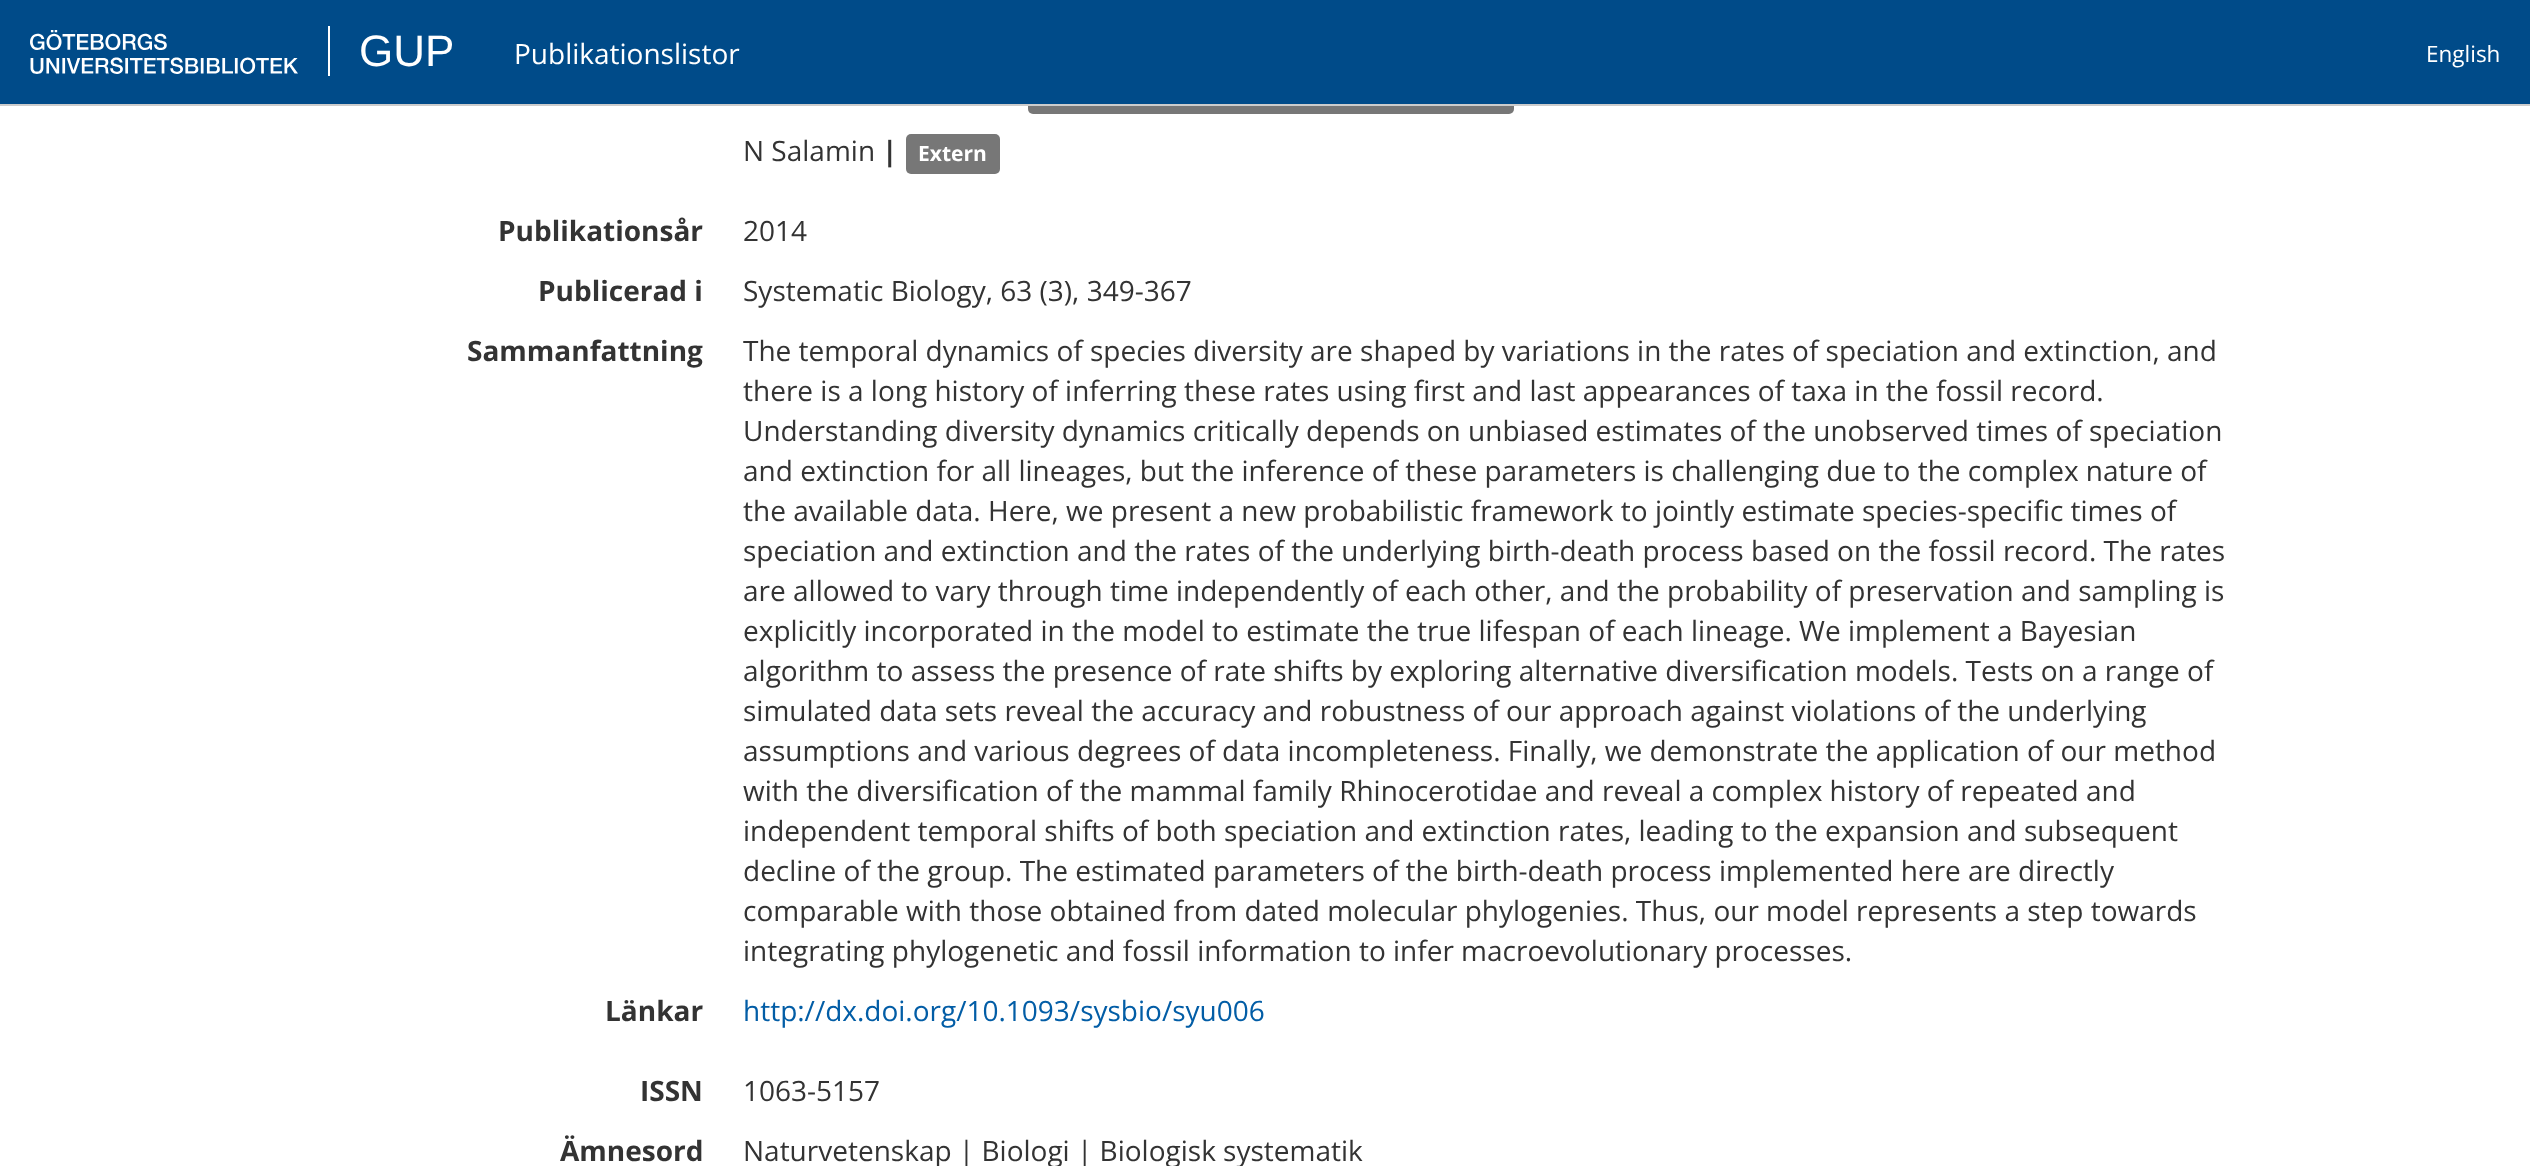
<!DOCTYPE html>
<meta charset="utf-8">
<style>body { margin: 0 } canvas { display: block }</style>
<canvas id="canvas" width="2530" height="1166"></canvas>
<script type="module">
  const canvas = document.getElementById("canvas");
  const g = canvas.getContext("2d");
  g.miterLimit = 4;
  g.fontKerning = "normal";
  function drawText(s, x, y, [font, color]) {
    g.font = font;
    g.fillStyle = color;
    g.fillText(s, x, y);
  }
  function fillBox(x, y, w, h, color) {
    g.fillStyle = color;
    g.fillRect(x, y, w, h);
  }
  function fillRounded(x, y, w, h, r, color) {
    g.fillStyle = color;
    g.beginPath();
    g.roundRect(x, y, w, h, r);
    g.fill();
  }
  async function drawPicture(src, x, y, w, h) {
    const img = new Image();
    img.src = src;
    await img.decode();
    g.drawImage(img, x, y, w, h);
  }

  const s1 = ["44px Liberation Sans", "#FFFFFF"];
  const s2 = ["28px Open Sans", "#FFFFFF"];
  const s3 = ["22.5px Open Sans", "#FFFFFF"];
  const s4 = ["28px Open Sans", "#333333"];
  const s5 = ["bold 28px Open Sans", "#333333"];
  const s6 = ["bold 21px Open Sans", "#FFFFFF"];
  const s7 = ["28px Open Sans", "#025DA6"];

  fillBox(0, 0, 2530, 1166, "#FFFFFF");
  fillRounded(1028, 74, 486, 40, 5, "#777777");
  fillBox(0, 0, 2530, 104, "#004B89");
  fillBox(0, 104, 2530, 2, "#CCCCCC");
  await drawPicture("pic1.png", 30, 30, 268, 44);
  fillBox(328, 26, 2, 50, "#FFFFFF");
  drawText("GUP", 359, 66, s1);
  drawText("Publikationslistor", 514, 64, s2);
  drawText("English", 2426, 62, s3);
  drawText("N Salamin", 743, 161, s4);
  drawText("|", 882, 161, s5);
  fillRounded(906, 134, 94, 40, 5, "#777777");
  drawText("Extern", 918, 161, s6);
  drawText("Publikationsår", 498, 241, s5);
  drawText("2014", 743, 241, s4);
  drawText("Publicerad i", 538, 301, s5);
  drawText("Systematic Biology, 63 (3), 349-367", 743, 301, s4);
  drawText("Sammanfattning", 467, 361, s5);
  drawText("The temporal dynamics of species diversity are shaped by variations in the rates of speciation and extinction, and", 743, 361, s4);
  drawText("there is a long history of inferring these rates using first and last appearances of taxa in the fossil record.", 743, 401, s4);
  drawText("Understanding diversity dynamics critically depends on unbiased estimates of the unobserved times of speciation", 743, 441, s4);
  drawText("and extinction for all lineages, but the inference of these parameters is challenging due to the complex nature of", 743, 481, s4);
  drawText("the available data. Here, we present a new probabilistic framework to jointly estimate species-specific times of", 743, 521, s4);
  drawText("speciation and extinction and the rates of the underlying birth-death process based on the fossil record. The rates", 743, 561, s4);
  drawText("are allowed to vary through time independently of each other, and the probability of preservation and sampling is", 743, 601, s4);
  drawText("explicitly incorporated in the model to estimate the true lifespan of each lineage. We implement a Bayesian", 743, 641, s4);
  drawText("algorithm to assess the presence of rate shifts by exploring alternative diversification models. Tests on a range of", 743, 681, s4);
  drawText("simulated data sets reveal the accuracy and robustness of our approach against violations of the underlying", 743, 721, s4);
  drawText("assumptions and various degrees of data incompleteness. Finally, we demonstrate the application of our method", 743, 761, s4);
  drawText("with the diversification of the mammal family Rhinocerotidae and reveal a complex history of repeated and", 743, 801, s4);
  drawText("independent temporal shifts of both speciation and extinction rates, leading to the expansion and subsequent", 743, 841, s4);
  drawText("decline of the group. The estimated parameters of the birth-death process implemented here are directly", 743, 881, s4);
  drawText("comparable with those obtained from dated molecular phylogenies. Thus, our model represents a step towards", 743, 921, s4);
  drawText("integrating phylogenetic and fossil information to infer macroevolutionary processes.", 743, 961, s4);
  drawText("Länkar", 605, 1021, s5);
  drawText("http://dx.doi.org/10.1093/sysbio/syu006", 743, 1021, s7);
  drawText("ISSN", 640, 1101, s5);
  drawText("1063-5157", 743, 1101, s4);
  drawText("Ämnesord", 560, 1161, s5);
  drawText("Naturvetenskap | Biologi | Biologisk systematik", 743, 1161, s4);
</script>
